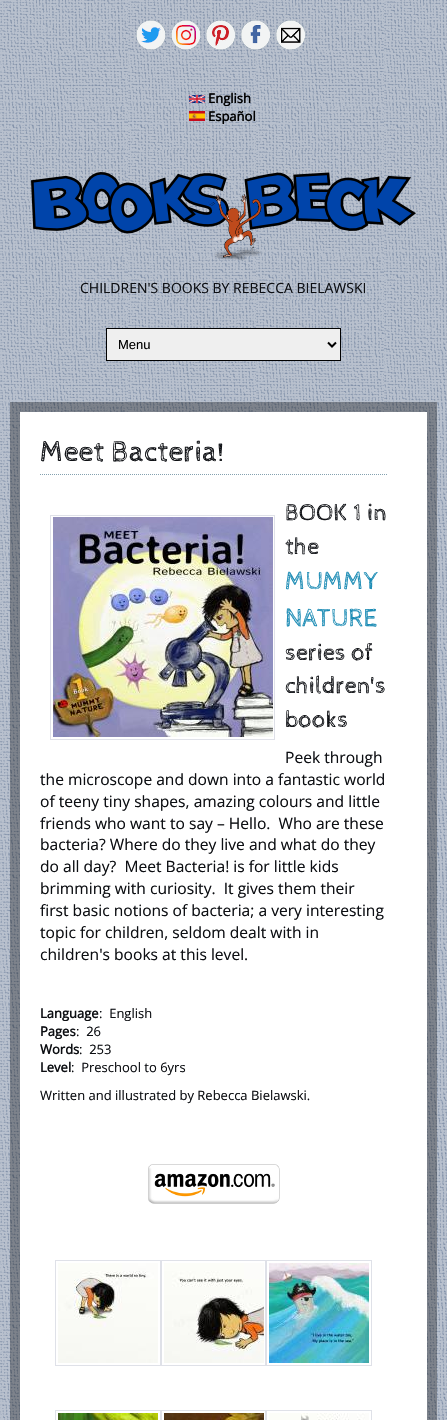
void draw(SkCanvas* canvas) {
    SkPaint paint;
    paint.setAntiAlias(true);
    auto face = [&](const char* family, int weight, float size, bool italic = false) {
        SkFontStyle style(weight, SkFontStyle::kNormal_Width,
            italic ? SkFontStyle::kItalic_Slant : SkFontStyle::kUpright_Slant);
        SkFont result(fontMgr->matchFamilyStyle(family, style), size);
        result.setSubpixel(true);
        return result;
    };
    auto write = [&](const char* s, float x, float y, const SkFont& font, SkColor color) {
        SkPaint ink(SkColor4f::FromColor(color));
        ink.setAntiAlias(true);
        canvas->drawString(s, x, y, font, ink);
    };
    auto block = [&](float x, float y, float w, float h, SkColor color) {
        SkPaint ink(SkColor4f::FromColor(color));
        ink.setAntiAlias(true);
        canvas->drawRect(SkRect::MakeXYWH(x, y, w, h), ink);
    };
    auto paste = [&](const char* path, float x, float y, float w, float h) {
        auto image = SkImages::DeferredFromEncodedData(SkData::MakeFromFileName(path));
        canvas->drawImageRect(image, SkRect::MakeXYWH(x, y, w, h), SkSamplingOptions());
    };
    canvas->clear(SK_ColorWHITE);
    paste("pic1.png", 0, 0, 447, 1420);
    paste("pic2.png", 136, 20, 30, 30);
    paste("pic3.png", 171, 20, 30, 30);
    paste("pic4.png", 206, 20, 30, 30);
    paste("pic5.png", 241, 20, 30, 30);
    paste("pic6.png", 276, 20, 30, 30);
    paste("pic7.png", 189, 95, 16, 8);
    auto kFont1 = face("Open Sans", 700, 13);
    write("English", 208, 103, kFont1, SK_ColorBLACK);
    paste("pic8.png", 189, 111, 16, 10);
    write("Español", 208, 121, kFont1, SK_ColorBLACK);
    paste("pic9.png", 31, 172, 385, 89);
    auto kFont2 = face("Open Sans", 400, 14);
    write("CHILDREN'S BOOKS BY REBECCA BIELAWSKI", 80, 293, kFont2, SkColorSetRGB(13, 15, 19));
    paint.setColor(SkColorSetRGB(239, 239, 239));
    canvas->drawRect(SkRect::MakeXYWH(106.5f, 328.5f, 234, 32), paint);
    paint.setStyle(SkPaint::kStroke_Style);
    paint.setStrokeWidth(1);
    paint.setColor(SK_ColorBLACK);
    canvas->drawRect(SkRect::MakeXYWH(106.5f, 328.5f, 234, 32), paint);
    paint.setStrokeWidth(2);
    canvas->drawPath(SkPathBuilder().moveTo(328, 342.5f).lineTo(332, 346.5f).lineTo(336, 342.5f).detach(), paint);
    auto kFont3 = face("Liberation Sans", 400, 13);
    write("Menu", 118, 349, kFont3, SK_ColorBLACK);
    block(10, 402, 427, 1018, SkColorSetARGB(82, 0, 0, 0));
    block(20, 412, 407, 1008, SK_ColorWHITE);
    paint.setStrokeWidth(1);
    paint.setColor(SkColorSetRGB(132, 161, 175));
    paint.setPathEffect(SkDashPathEffect::Make({{1, 1}}, 0));
    canvas->drawPath(SkPathBuilder().moveTo(40, 474.5f).lineTo(387, 474.5f).detach(), paint);
    paint.setPathEffect(nullptr);
    auto kFont4 = face("Cabin Sketch", 400, 30);
    write("Meet Bacteria!", 40, 461, kFont4, SkColorSetRGB(13, 15, 19));
    auto kFont5 = face("Cabin Sketch", 400, 24);
    write("BOOK 1 in", 285, 520, kFont5, SkColorSetRGB(13, 15, 19));
    paint.setColor(SkColorSetRGB(223, 225, 232));
    canvas->drawRect(SkRect::MakeXYWH(50.5f, 515.5f, 224, 224), paint);
    paste("pic10.png", 53, 517, 220, 220);
    write("the", 285, 554, kFont5, SkColorSetRGB(13, 15, 19));
    auto kFont6 = face("Cabin Sketch", 400, 26);
    write("MUMMY", 285, 589, kFont6, SkColorSetRGB(28, 140, 181));
    write("NATURE", 285, 626, kFont6, SkColorSetRGB(28, 140, 181));
    write("series of", 285, 660, kFont5, SkColorSetRGB(13, 15, 19));
    write("children's", 285, 693, kFont5, SkColorSetRGB(13, 15, 19));
    write("books", 285, 727, kFont5, SkColorSetRGB(13, 15, 19));
    auto kFont7 = face("Open Sans", 400, 15.6f);
    write("Peek through", 285, 763, kFont7, SkColorSetRGB(13, 15, 19));
    write("the microscope and down into a fantastic world", 40, 785, kFont7, SkColorSetRGB(13, 15, 19));
    write("of teeny tiny shapes, amazing colours and little", 40, 807, kFont7, SkColorSetRGB(13, 15, 19));
    write("friends who want to say – Hello.  Who are these", 40, 829, kFont7, SkColorSetRGB(13, 15, 19));
    write("bacteria? Where do they live and what do they", 40, 850, kFont7, SkColorSetRGB(13, 15, 19));
    write("do all day?  Meet Bacteria! is for little kids", 40, 872, kFont7, SkColorSetRGB(13, 15, 19));
    write("brimming with curiosity.  It gives them their", 40, 894, kFont7, SkColorSetRGB(13, 15, 19));
    write("first basic notions of bacteria; a very interesting", 40, 916, kFont7, SkColorSetRGB(13, 15, 19));
    write("topic for children, seldom dealt with in", 40, 938, kFont7, SkColorSetRGB(13, 15, 19));
    write("children's books at this level.", 40, 960, kFont7, SkColorSetRGB(13, 15, 19));
    write("Language", 40, 1018, kFont1, SkColorSetRGB(13, 15, 19));
    auto kFont8 = face("Open Sans", 400, 13);
    write(":  English", 99, 1018, kFont8, SkColorSetRGB(13, 15, 19));
    write("Pages", 40, 1036, kFont1, SkColorSetRGB(13, 15, 19));
    write(":  26", 76, 1036, kFont8, SkColorSetRGB(13, 15, 19));
    write("Words", 40, 1054, kFont1, SkColorSetRGB(13, 15, 19));
    write(":  253", 79, 1054, kFont8, SkColorSetRGB(13, 15, 19));
    write("Level", 40, 1072, kFont1, SkColorSetRGB(13, 15, 19));
    write(":  Preschool to 6yrs", 71, 1072, kFont8, SkColorSetRGB(13, 15, 19));
    write("Written and illustrated by Rebecca Bielawski.", 40, 1100, kFont8, SkColorSetRGB(13, 15, 19));
    paste("pic11.png", 148, 1164, 132, 40);
    canvas->drawRect(SkRect::MakeXYWH(55.5f, 1260.5f, 105, 105), paint);
    canvas->drawRect(SkRect::MakeXYWH(161.5f, 1260.5f, 104, 105), paint);
    canvas->drawRect(SkRect::MakeXYWH(266.5f, 1260.5f, 105, 105), paint);
    paste("pic12.png", 58, 1263, 100, 100);
    paste("pic13.png", 164, 1263, 100, 100);
    paste("pic14.png", 269, 1263, 100, 100);
    canvas->drawRect(SkRect::MakeXYWH(55.5f, 1410.5f, 105, 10), paint);
    canvas->drawRect(SkRect::MakeXYWH(161.5f, 1410.5f, 104, 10), paint);
    canvas->drawRect(SkRect::MakeXYWH(266.5f, 1410.5f, 105, 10), paint);
    paste("pic15.png", 58, 1413, 100, 7);
    paste("pic16.png", 164, 1413, 100, 7);
    paste("pic17.png", 269, 1413, 100, 7);
}
